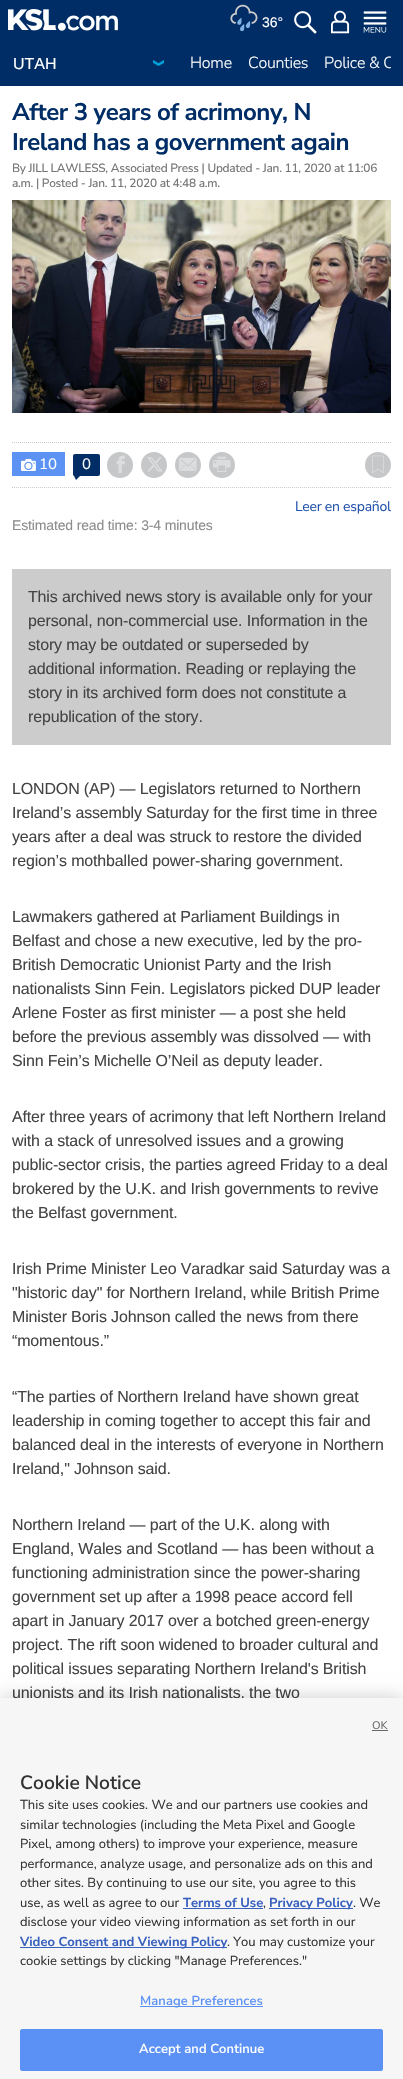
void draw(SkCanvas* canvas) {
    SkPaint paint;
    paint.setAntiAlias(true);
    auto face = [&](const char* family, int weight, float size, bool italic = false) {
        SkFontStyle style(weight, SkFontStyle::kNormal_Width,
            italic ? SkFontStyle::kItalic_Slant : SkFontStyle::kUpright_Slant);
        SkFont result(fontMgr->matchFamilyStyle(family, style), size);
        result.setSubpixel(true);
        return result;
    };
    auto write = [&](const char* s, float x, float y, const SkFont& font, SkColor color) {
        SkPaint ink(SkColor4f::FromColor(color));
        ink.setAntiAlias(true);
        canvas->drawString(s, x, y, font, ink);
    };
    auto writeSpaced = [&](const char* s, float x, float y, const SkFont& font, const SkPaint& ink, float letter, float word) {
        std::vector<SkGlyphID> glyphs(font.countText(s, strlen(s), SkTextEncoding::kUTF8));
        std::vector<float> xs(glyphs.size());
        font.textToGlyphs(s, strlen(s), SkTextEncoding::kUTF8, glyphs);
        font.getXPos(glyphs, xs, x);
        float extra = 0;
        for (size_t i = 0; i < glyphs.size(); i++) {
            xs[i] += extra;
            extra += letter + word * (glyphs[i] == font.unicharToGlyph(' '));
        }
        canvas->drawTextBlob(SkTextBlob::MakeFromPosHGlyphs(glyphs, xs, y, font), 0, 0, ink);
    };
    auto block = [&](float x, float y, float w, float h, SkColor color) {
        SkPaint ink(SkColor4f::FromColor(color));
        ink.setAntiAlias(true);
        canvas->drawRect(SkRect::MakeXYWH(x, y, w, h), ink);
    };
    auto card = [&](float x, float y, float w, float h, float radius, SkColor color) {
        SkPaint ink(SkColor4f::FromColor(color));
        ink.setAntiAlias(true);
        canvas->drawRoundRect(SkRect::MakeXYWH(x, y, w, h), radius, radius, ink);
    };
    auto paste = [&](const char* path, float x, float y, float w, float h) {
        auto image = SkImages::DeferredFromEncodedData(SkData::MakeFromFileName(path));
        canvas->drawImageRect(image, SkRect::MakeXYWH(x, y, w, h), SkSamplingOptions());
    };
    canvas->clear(SK_ColorWHITE);
    block(0, 0, 403, 86, SkColorSetRGB(0, 45, 101));
    paste("pic1.png", 8, 9, 110, 22);
    paste("pic2.png", 230, 4, 28, 28);
    auto kFont1 = face("Liberation Sans", 400, 14);
    write("36°", 262, 27, kFont1, SK_ColorWHITE);
    paste("pic3.png", 294, 11, 23, 23);
    paste("pic4.png", 331, 10, 19, 24);
    paste("pic5.png", 363, 11, 24, 22);
    paste("pic6.png", 153, 60, 11, 6);
    auto kFont2 = face("Liberation Sans", 400, 16);
    write("UTAH", 13, 69, kFont2, SK_ColorWHITE);
    auto kFont3 = face("Nunito Sans", 300, 16);
    paint.setColor(SK_ColorWHITE);
    writeSpaced("Home", 190, 68, kFont3, paint, -0.25f, 0);
    writeSpaced("Counties", 248, 68, kFont3, paint, -0.25f, 0);
    canvas->save();
    canvas->clipRect(SkRect::MakeXYWH(182, 54, 209, 24));
    writeSpaced("Police & C", 324, 68, kFont3, paint, -0.25f, 0);
    canvas->restore();
    auto kFont4 = face("Nunito Sans", 700, 24);
    paint.setColor(SkColorSetRGB(0, 45, 101));
    writeSpaced("After 3 years of acrimony, N", 12, 120, kFont4, paint, -0.5f, 0);
    writeSpaced("Ireland has a government again", 12, 150, kFont4, paint, -0.5f, 0);
    auto kFont5 = face("Nunito Sans", 500, 11.9f);
    paint.setColor(SkColorSetRGB(118, 118, 118));
    writeSpaced("By JILL LAWLESS, Associated Press | Updated - Jan. 11, 2020 at 11:06", 12, 172, kFont5, paint, -0.25f, 0);
    writeSpaced("a.m. | Posted - Jan. 11, 2020 at 4:48 a.m.", 12, 187, kFont5, paint, -0.25f, 0);
    paste("pic7.png", 12, 200, 379, 213);
    paint.setStyle(SkPaint::kStroke_Style);
    paint.setStrokeWidth(1);
    paint.setColor(SkColorSetRGB(204, 204, 204));
    paint.setPathEffect(SkDashPathEffect::Make({{1, 1}}, 0));
    canvas->drawPath(SkPathBuilder().moveTo(12, 442.5f).lineTo(391, 442.5f).detach(), paint);
    paint.setPathEffect(nullptr);
    block(12, 452, 53, 24, SkColorSetRGB(91, 146, 244));
    paste("pic8.png", 21, 458, 15, 13);
    auto kFont6 = face("Nunito Sans", 400, 15);
    write("10", 39, 469, kFont6, SK_ColorWHITE);
    card(73, 454, 27, 22, 2, SkColorSetRGB(0, 45, 101));
    write("0", 82, 469, kFont6, SK_ColorWHITE);
    paint.setStyle(SkPaint::kFill_Style);
    paint.setColor(SkColorSetRGB(0, 45, 101));
    canvas->drawPath(SkPathBuilder().moveTo(73, 474).lineTo(82, 474).lineTo(76, 480).close().detach(), paint);
    paint.setColor(SkColorSetRGB(197, 199, 200));
    canvas->drawCircle(120, 465, 13, paint);
    paste("pic9.png", 116, 455, 9, 18);
    canvas->drawCircle(154, 465, 13, paint);
    paste("pic10.png", 147, 457, 16, 15);
    canvas->drawCircle(188, 465, 13, paint);
    paste("pic11.png", 179, 457, 18, 14);
    canvas->drawCircle(222, 465, 13, paint);
    paste("pic12.png", 213, 456, 18, 16);
    canvas->drawCircle(378, 465, 13, paint);
    paste("pic13.png", 372, 455, 12, 18);
    paint.setStyle(SkPaint::kStroke_Style);
    paint.setColor(SkColorSetRGB(204, 204, 204));
    paint.setPathEffect(SkDashPathEffect::Make({{1, 1}}, 0));
    canvas->drawPath(SkPathBuilder().moveTo(12, 487.5f).lineTo(391, 487.5f).detach(), paint);
    paint.setPathEffect(nullptr);
    auto kFont7 = face("Nunito Sans", 400, 14);
    paint.setStyle(SkPaint::kFill_Style);
    paint.setColor(SkColorSetRGB(35, 84, 172));
    writeSpaced("Leer en español", 295, 511, kFont7, paint, -0.25f, 0);
    paint.setColor(SkColorSetRGB(140, 140, 140));
    writeSpaced("Estimated read time: 3-4 minutes", 12, 530, kFont1, paint, -0.15f, 0);
    block(12, 569, 379, 176, SkColorSetRGB(204, 204, 204));
    paint.setColor(SkColorSetRGB(68, 68, 68));
    writeSpaced("This archived news story is available only for your", 28, 602, kFont2, paint, -0.15f, 0);
    writeSpaced("personal, non-commercial use. Information in the", 28, 626, kFont2, paint, -0.15f, 0);
    writeSpaced("story may be outdated or superseded by", 28, 650, kFont2, paint, -0.15f, 0);
    writeSpaced("additional information. Reading or replaying the", 28, 674, kFont2, paint, -0.15f, 0);
    writeSpaced("story in its archived form does not constitute a", 28, 698, kFont2, paint, -0.15f, 0);
    writeSpaced("republication of the story.", 28, 722, kFont2, paint, -0.15f, 0);
    writeSpaced("LONDON (AP) — Legislators returned to Northern", 12, 794, kFont2, paint, -0.15f, 0);
    writeSpaced("Ireland’s assembly Saturday for the first time in three", 12, 818, kFont2, paint, -0.15f, 0);
    writeSpaced("years after a deal was struck to restore the divided", 12, 842, kFont2, paint, -0.15f, 0);
    writeSpaced("region’s mothballed power-sharing government.", 12, 866, kFont2, paint, -0.15f, 0);
    writeSpaced("Lawmakers gathered at Parliament Buildings in", 12, 922, kFont2, paint, -0.15f, 0);
    writeSpaced("Belfast and chose a new executive, led by the pro-", 12, 946, kFont2, paint, -0.15f, 0);
    writeSpaced("British Democratic Unionist Party and the Irish", 12, 970, kFont2, paint, -0.15f, 0);
    writeSpaced("nationalists Sinn Fein. Legislators picked DUP leader", 12, 994, kFont2, paint, -0.15f, 0);
    writeSpaced("Arlene Foster as first minister — a post she held", 12, 1018, kFont2, paint, -0.15f, 0);
    writeSpaced("before the previous assembly was dissolved — with", 12, 1042, kFont2, paint, -0.15f, 0);
    writeSpaced("Sinn Fein’s Michelle O’Neil as deputy leader.", 12, 1066, kFont2, paint, -0.15f, 0);
    writeSpaced("After three years of acrimony that left Northern Ireland", 12, 1122, kFont2, paint, -0.15f, 0);
    writeSpaced("with a stack of unresolved issues and a growing", 12, 1146, kFont2, paint, -0.15f, 0);
    writeSpaced("public-sector crisis, the parties agreed Friday to a deal", 12, 1170, kFont2, paint, -0.15f, 0);
    writeSpaced("brokered by the U.K. and Irish governments to revive", 12, 1194, kFont2, paint, -0.15f, 0);
    writeSpaced("the Belfast government.", 12, 1218, kFont2, paint, -0.15f, 0);
    writeSpaced("Irish Prime Minister Leo Varadkar said Saturday was a", 12, 1274, kFont2, paint, -0.15f, 0);
    writeSpaced("\"historic day\" for Northern Ireland, while British Prime", 12, 1298, kFont2, paint, -0.15f, 0);
    writeSpaced("Minister Boris Johnson called the news from there", 12, 1322, kFont2, paint, -0.15f, 0);
    writeSpaced("“momentous.”", 12, 1346, kFont2, paint, -0.15f, 0);
    writeSpaced("“The parties of Northern Ireland have shown great", 12, 1402, kFont2, paint, -0.15f, 0);
    writeSpaced("leadership in coming together to accept this fair and", 12, 1426, kFont2, paint, -0.15f, 0);
    writeSpaced("balanced deal in the interests of everyone in Northern", 12, 1450, kFont2, paint, -0.15f, 0);
    writeSpaced("Ireland,\" Johnson said.", 12, 1474, kFont2, paint, -0.15f, 0);
    writeSpaced("Northern Ireland — part of the U.K. along with", 12, 1530, kFont2, paint, -0.15f, 0);
    writeSpaced("England, Wales and Scotland — has been without a", 12, 1554, kFont2, paint, -0.15f, 0);
    writeSpaced("functioning administration since the power-sharing", 12, 1578, kFont2, paint, -0.15f, 0);
    writeSpaced("government set up after a 1998 peace accord fell", 12, 1602, kFont2, paint, -0.15f, 0);
    writeSpaced("apart in January 2017 over a botched green-energy", 12, 1626, kFont2, paint, -0.15f, 0);
    writeSpaced("project. The rift soon widened to broader cultural and", 12, 1650, kFont2, paint, -0.15f, 0);
    writeSpaced("political issues separating Northern Ireland's British", 12, 1674, kFont2, paint, -0.15f, 0);
    writeSpaced("unionists and its Irish nationalists, the two", 12, 1698, kFont2, paint, -0.15f, 0);
    paint.setColor(SkColorSetARGB(51, 0, 0, 0));
    paint.setMaskFilter(SkMaskFilter::MakeBlur(kNormal_SkBlurStyle, 9));
    canvas->drawRect(SkRect::MakeXYWH(0, 1698, 403, 381), paint);
    paint.setMaskFilter(nullptr);
    block(0, 1698, 403, 381, SkColorSetRGB(246, 246, 246));
    auto kFont8 = face("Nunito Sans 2", 400, 11);
    write("OK", 372, 1729, kFont8, SkColorSetRGB(105, 105, 105));
    block(372, 1730, 16, 1, SkColorSetRGB(105, 105, 105));
    auto kFont9 = face("Nunito Sans", 600, 19.25f);
    write("Cookie Notice", 20, 1789, kFont9, SkColorSetRGB(52, 52, 52));
    auto kFont10 = face("Nunito Sans", 400, 13);
    write("This site uses cookies. We and our partners use cookies and", 20, 1809, kFont10, SkColorSetRGB(52, 52, 52));
    write("similar technologies (including the Meta Pixel and Google", 20, 1829, kFont10, SkColorSetRGB(52, 52, 52));
    write("Pixel, among others) to improve your experience, measure", 20, 1848, kFont10, SkColorSetRGB(52, 52, 52));
    write("performance, analyze usage, and personalize ads on this and", 20, 1868, kFont10, SkColorSetRGB(52, 52, 52));
    write("other sites. By continuing to use our site, you agree to this", 20, 1887, kFont10, SkColorSetRGB(52, 52, 52));
    write("use, as well as agree to our", 20, 1907, kFont10, SkColorSetRGB(52, 52, 52));
    auto kFont11 = face("Nunito Sans", 700, 13);
    write("Terms of Use", 183, 1907, kFont11, SkColorSetRGB(56, 96, 190));
    block(183, 1908, 80, 1, SkColorSetRGB(56, 96, 190));
    write(",", 263, 1907, kFont10, SkColorSetRGB(52, 52, 52));
    block(269, 1908, 84, 1, SkColorSetRGB(56, 96, 190));
    write("Privacy Policy", 269, 1907, kFont11, SkColorSetRGB(56, 96, 190));
    write(". We", 353, 1907, kFont10, SkColorSetRGB(52, 52, 52));
    write("disclose your video viewing information as set forth in our", 20, 1926, kFont10, SkColorSetRGB(52, 52, 52));
    block(20, 1947, 207, 1, SkColorSetRGB(56, 96, 190));
    write("Video Consent and Viewing Policy", 20, 1946, kFont11, SkColorSetRGB(56, 96, 190));
    write(". You may customize your", 227, 1946, kFont10, SkColorSetRGB(52, 52, 52));
    write("cookie settings by clicking \"Manage Preferences.\"", 20, 1965, kFont10, SkColorSetRGB(52, 52, 52));
    block(140, 2006, 123, 1, SkColorSetRGB(91, 145, 244));
    auto kFont12 = face("Nunito Sans", 600, 13);
    paint.setColor(SkColorSetRGB(91, 145, 244));
    writeSpaced("Manage Preferences", 140, 2005, kFont12, paint, 0.1f, 0);
    canvas->drawRoundRect(SkRect::MakeXYWH(20.5f, 2029.5f, 362, 41), 1.5f, 1.5f, paint);
    paint.setStyle(SkPaint::kStroke_Style);
    canvas->drawRoundRect(SkRect::MakeXYWH(20.5f, 2029.5f, 362, 41), 1.5f, 1.5f, paint);
    paint.setStyle(SkPaint::kFill_Style);
    paint.setColor(SK_ColorWHITE);
    writeSpaced("Accept and Continue", 139, 2053, kFont12, paint, 0.1f, 0);
}
